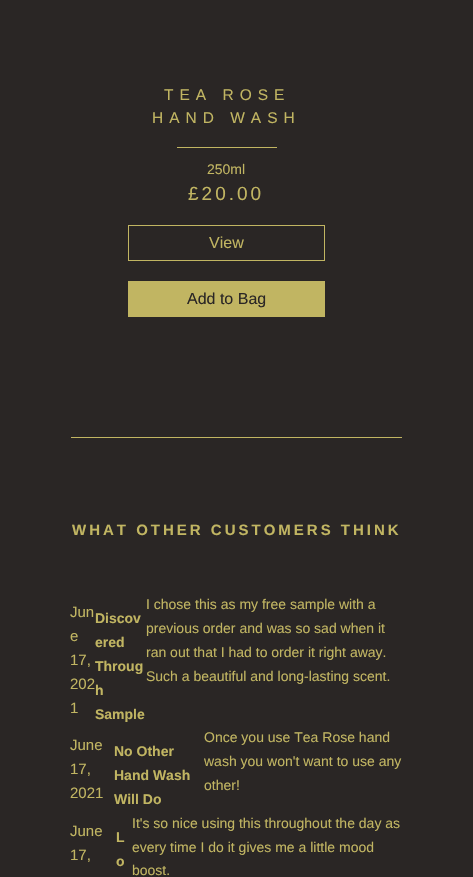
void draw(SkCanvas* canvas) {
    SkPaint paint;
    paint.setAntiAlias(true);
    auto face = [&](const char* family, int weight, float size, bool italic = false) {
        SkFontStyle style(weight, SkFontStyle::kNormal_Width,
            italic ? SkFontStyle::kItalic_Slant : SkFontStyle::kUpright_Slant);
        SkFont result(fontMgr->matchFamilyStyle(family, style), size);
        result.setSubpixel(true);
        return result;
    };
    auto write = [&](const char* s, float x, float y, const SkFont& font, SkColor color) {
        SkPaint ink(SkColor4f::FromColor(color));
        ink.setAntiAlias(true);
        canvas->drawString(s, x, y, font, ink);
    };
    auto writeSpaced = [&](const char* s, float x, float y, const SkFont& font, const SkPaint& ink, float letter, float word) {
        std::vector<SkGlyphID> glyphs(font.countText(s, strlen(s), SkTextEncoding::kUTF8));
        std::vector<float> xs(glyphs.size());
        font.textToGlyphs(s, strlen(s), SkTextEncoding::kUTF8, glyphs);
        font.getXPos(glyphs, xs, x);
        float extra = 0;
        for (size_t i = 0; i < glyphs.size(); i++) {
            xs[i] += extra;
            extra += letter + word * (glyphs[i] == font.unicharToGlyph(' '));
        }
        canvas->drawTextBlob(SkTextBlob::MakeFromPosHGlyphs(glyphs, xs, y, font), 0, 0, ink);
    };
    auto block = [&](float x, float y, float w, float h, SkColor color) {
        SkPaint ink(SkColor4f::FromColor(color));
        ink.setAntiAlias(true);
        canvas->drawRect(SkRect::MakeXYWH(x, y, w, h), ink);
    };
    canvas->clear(SkColorSetRGB(42, 38, 37));
    auto kFont1 = face("Liberation Sans", 400, 15.5f);
    paint.setColor(SkColorSetRGB(193, 181, 98));
    writeSpaced("TEA ROSE", 164, 100, kFont1, paint, 6, 0);
    writeSpaced("HAND WASH", 152, 123, kFont1, paint, 6, 0);
    block(177, 147, 100, 1, SkColorSetRGB(193, 181, 98));
    auto kFont2 = face("Liberation Sans", 400, 14);
    write("250ml", 207, 174, kFont2, SkColorSetRGB(193, 181, 98));
    auto kFont3 = face("Liberation Sans", 400, 19);
    writeSpaced("£20.00", 188, 200, kFont3, paint, 3, 0);
    paint.setStyle(SkPaint::kStroke_Style);
    paint.setStrokeWidth(1);
    canvas->drawRect(SkRect::MakeXYWH(128.5f, 225.5f, 196, 35), paint);
    auto kFont4 = face("Liberation Sans", 400, 16);
    write("View", 209, 248, kFont4, SkColorSetRGB(193, 181, 98));
    block(128, 281, 197, 36, SkColorSetRGB(193, 181, 98));
    write("Add to Bag", 187, 304, kFont4, SkColorSetRGB(42, 38, 37));
    block(71, 437, 331, 1, SkColorSetRGB(193, 181, 98));
    auto kFont5 = face("Liberation Sans", 700, 15);
    paint.setStyle(SkPaint::kFill_Style);
    writeSpaced("WHAT OTHER CUSTOMERS THINK", 72, 535, kFont5, paint, 3, 0);
    auto kFont6 = face("Liberation Sans", 400, 15);
    write("Jun", 70, 617, kFont6, SkColorSetRGB(193, 181, 98));
    write("e", 70, 641, kFont6, SkColorSetRGB(193, 181, 98));
    write("17,", 70, 665, kFont6, SkColorSetRGB(193, 181, 98));
    write("202", 70, 689, kFont6, SkColorSetRGB(193, 181, 98));
    write("1", 70, 713, kFont6, SkColorSetRGB(193, 181, 98));
    auto kFont7 = face("Liberation Sans", 700, 14);
    write("Discov", 95, 623, kFont7, SkColorSetRGB(193, 181, 98));
    write("ered", 95, 647, kFont7, SkColorSetRGB(193, 181, 98));
    write("Throug", 95, 671, kFont7, SkColorSetRGB(193, 181, 98));
    write("h", 95, 695, kFont7, SkColorSetRGB(193, 181, 98));
    write("Sample", 95, 719, kFont7, SkColorSetRGB(193, 181, 98));
    write("I chose this as my free sample with a", 146, 609, kFont2, SkColorSetRGB(193, 181, 98));
    write("previous order and was so sad when it", 146, 633, kFont2, SkColorSetRGB(193, 181, 98));
    write("ran out that I had to order it right away.", 146, 657, kFont2, SkColorSetRGB(193, 181, 98));
    write("Such a beautiful and long-lasting scent.", 146, 681, kFont2, SkColorSetRGB(193, 181, 98));
    write("June", 70, 750, kFont6, SkColorSetRGB(193, 181, 98));
    write("17,", 70, 774, kFont6, SkColorSetRGB(193, 181, 98));
    write("2021", 70, 798, kFont6, SkColorSetRGB(193, 181, 98));
    write("No Other", 114, 756, kFont7, SkColorSetRGB(193, 181, 98));
    write("Hand Wash", 114, 780, kFont7, SkColorSetRGB(193, 181, 98));
    write("Will Do", 114, 804, kFont7, SkColorSetRGB(193, 181, 98));
    write("Once you use Tea Rose hand", 204, 742, kFont2, SkColorSetRGB(193, 181, 98));
    write("wash you won't want to use any", 204, 766, kFont2, SkColorSetRGB(193, 181, 98));
    write("other!", 204, 790, kFont2, SkColorSetRGB(193, 181, 98));
    write("June", 70, 836, kFont6, SkColorSetRGB(193, 181, 98));
    write("17,", 70, 860, kFont6, SkColorSetRGB(193, 181, 98));
    write("L", 116, 842, kFont7, SkColorSetRGB(193, 181, 98));
    write("o", 116, 866, kFont7, SkColorSetRGB(193, 181, 98));
    write("It's so nice using this throughout the day as", 132, 828, kFont2, SkColorSetRGB(193, 181, 98));
    write("every time I do it gives me a little mood", 132, 852, kFont2, SkColorSetRGB(193, 181, 98));
    write("boost.", 132, 875, kFont2, SkColorSetRGB(193, 181, 98));
}
